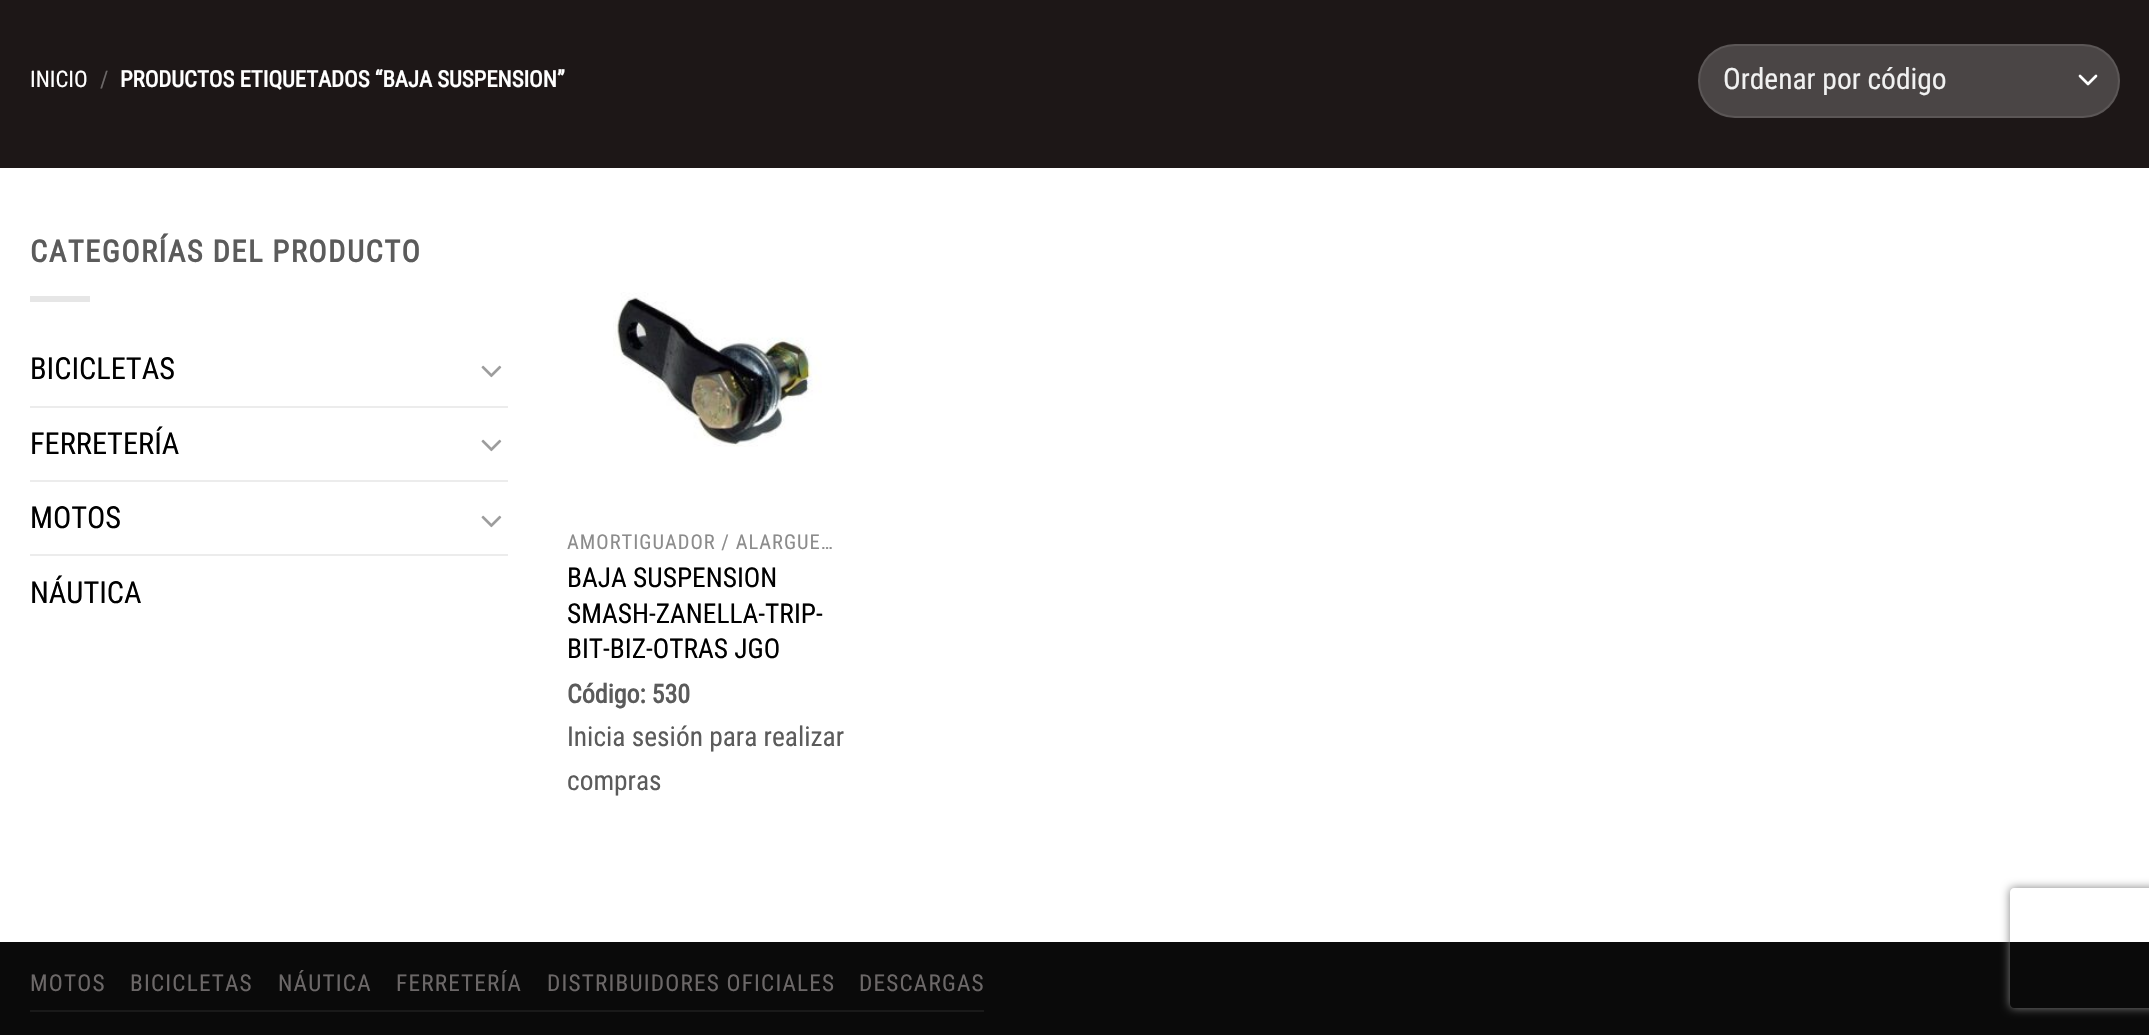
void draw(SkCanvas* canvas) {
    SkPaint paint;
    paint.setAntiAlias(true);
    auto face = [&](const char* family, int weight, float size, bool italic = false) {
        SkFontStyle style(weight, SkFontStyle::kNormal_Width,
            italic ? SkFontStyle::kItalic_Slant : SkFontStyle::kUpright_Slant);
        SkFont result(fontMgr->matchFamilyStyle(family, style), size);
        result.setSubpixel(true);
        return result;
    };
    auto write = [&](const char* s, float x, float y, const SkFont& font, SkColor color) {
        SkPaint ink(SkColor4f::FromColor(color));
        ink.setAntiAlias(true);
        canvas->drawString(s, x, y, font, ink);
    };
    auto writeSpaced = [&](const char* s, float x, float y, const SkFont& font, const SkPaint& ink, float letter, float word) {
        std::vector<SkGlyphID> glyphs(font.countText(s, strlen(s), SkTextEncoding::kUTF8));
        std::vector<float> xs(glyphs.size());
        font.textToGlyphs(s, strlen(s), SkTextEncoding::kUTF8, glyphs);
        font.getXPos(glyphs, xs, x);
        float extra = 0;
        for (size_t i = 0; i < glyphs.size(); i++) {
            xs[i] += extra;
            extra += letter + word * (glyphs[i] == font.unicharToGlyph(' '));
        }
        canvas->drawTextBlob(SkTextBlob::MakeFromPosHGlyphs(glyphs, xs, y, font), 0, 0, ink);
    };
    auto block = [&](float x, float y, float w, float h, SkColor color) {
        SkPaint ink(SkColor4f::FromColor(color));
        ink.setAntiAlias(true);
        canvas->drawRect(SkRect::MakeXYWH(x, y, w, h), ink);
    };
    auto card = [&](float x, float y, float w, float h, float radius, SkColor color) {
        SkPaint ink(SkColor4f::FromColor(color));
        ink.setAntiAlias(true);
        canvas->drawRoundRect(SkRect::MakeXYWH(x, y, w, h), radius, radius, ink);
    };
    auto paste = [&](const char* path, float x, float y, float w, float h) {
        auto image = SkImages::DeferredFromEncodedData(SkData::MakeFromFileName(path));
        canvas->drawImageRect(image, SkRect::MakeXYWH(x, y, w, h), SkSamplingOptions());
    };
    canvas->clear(SK_ColorWHITE);
    block(0, 0, 2149, 168, SkColorSetRGB(29, 23, 23));
    auto kFont1 = face("Roboto Condensed", 400, 22.75f);
    write("INICIO", 30, 87, kFont1, SK_ColorWHITE);
    write("/", 100, 87, kFont1, SkColorSetRGB(108, 104, 104));
    auto kFont2 = face("Roboto Condensed", 700, 22.75f);
    write("PRODUCTOS ETIQUETADOS “BAJA SUSPENSION”", 120, 87, kFont2, SK_ColorWHITE);
    card(1698, 44, 422, 74, 37, SkColorSetRGB(74, 69, 69));
    paint.setStyle(SkPaint::kStroke_Style);
    paint.setStrokeWidth(2.7f);
    paint.setStrokeCap(SkPaint::kRound_Cap);
    paint.setStrokeJoin(SkPaint::kRound_Join);
    paint.setColor(SK_ColorWHITE);
    canvas->drawPath(SkPathBuilder().moveTo(2080, 76).lineTo(2088, 84).lineTo(2096, 76).detach(), paint);
    paint.setStrokeWidth(2);
    paint.setStrokeCap(SkPaint::kButt_Cap);
    paint.setStrokeJoin(SkPaint::kMiter_Join);
    paint.setColor(SkColorSetARGB(23, 255, 255, 255));
    canvas->drawRoundRect(SkRect::MakeXYWH(1699, 45, 420, 72), 36, 36, paint);
    auto kFont3 = face("Roboto Condensed", 400, 29.5f);
    write("Ordenar por código", 1723, 89, kFont3, SkColorSetRGB(241, 241, 241));
    auto kFont4 = face("Roboto Condensed", 700, 30.4f);
    paint.setStyle(SkPaint::kFill_Style);
    paint.setColor(SkColorSetRGB(91, 91, 91));
    writeSpaced("CATEGORÍAS DEL PRODUCTO", 30, 262, kFont4, paint, 1.5f, 0);
    block(30, 296, 60, 6, SkColorSetRGB(230, 230, 230));
    auto kFont5 = face("Roboto Condensed", 400, 30.4f);
    write("BICICLETAS", 30, 379, kFont5, SK_ColorBLACK);
    paste("pic1.png", 481, 365, 21, 13);
    block(30, 406, 478, 2, SkColorSetRGB(236, 236, 236));
    write("FERRETERÍA", 30, 454, kFont5, SK_ColorBLACK);
    paste("pic1.png", 481, 439, 21, 13);
    block(30, 480, 478, 2, SkColorSetRGB(236, 236, 236));
    write("MOTOS", 30, 528, kFont5, SK_ColorBLACK);
    paste("pic1.png", 481, 515, 21, 13);
    block(30, 554, 478, 2, SkColorSetRGB(236, 236, 236));
    write("NÁUTICA", 30, 603, kFont5, SK_ColorBLACK);
    paste("pic2.png", 613, 292, 209, 155);
    auto kFont6 = face("Roboto Condensed", 400, 20.5f);
    paint.setColor(SkColorSetRGB(140, 140, 140));
    writeSpaced("AMORTIGUADOR / ALARGUE…", 567, 549, kFont6, paint, 1, 0);
    auto kFont7 = face("Roboto Condensed", 400, 27.4f);
    write("BAJA SUSPENSION", 567, 587, kFont7, SK_ColorBLACK);
    write("SMASH-ZANELLA-TRIP-", 567, 623, kFont7, SK_ColorBLACK);
    write("BIT-BIZ-OTRAS JGO", 567, 658, kFont7, SK_ColorBLACK);
    auto kFont8 = face("Roboto Condensed", 700, 26);
    write("Código: 530", 567, 703, kFont8, SkColorSetRGB(91, 91, 91));
    write("Inicia sesión para realizar", 567, 746, kFont7, SkColorSetRGB(91, 91, 91));
    write("compras", 567, 790, kFont7, SkColorSetRGB(91, 91, 91));
    block(0, 942, 2149, 93, SkColorSetRGB(10, 10, 10));
    block(30, 1010, 954, 2, SkColorSetRGB(26, 26, 26));
    auto kFont9 = face("Roboto Condensed", 400, 23.25f);
    paint.setColor(SkColorSetRGB(108, 104, 104));
    writeSpaced("MOTOS", 30, 991, kFont9, paint, 1.2f, 0);
    writeSpaced("BICICLETAS", 130, 991, kFont9, paint, 1.2f, 0);
    writeSpaced("NÁUTICA", 278, 991, kFont9, paint, 1.2f, 0);
    writeSpaced("FERRETERÍA", 396, 991, kFont9, paint, 1.2f, 0);
    writeSpaced("DISTRIBUIDORES OFICIALES", 547, 991, kFont9, paint, 1.2f, 0);
    writeSpaced("DESCARGAS", 859, 991, kFont9, paint, 1.2f, 0);
    canvas->save();
    canvas->clipPath(SkPathBuilder(SkPathFillType::kEvenOdd).moveTo(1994, 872).lineTo(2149, 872).lineTo(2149, 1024).lineTo(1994, 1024).close().moveTo(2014, 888).lineTo(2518, 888).cubicTo(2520, 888, 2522, 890, 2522, 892).lineTo(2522, 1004).cubicTo(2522, 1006, 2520, 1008, 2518, 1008).lineTo(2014, 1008).cubicTo(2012, 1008, 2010, 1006, 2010, 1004).lineTo(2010, 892).cubicTo(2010, 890, 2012, 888, 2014, 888).close().detach(), true);
    paint.setColor(SkColorSetRGB(128, 128, 128));
    paint.setMaskFilter(SkMaskFilter::MakeBlur(kNormal_SkBlurStyle, 5));
    canvas->drawRoundRect(SkRect::MakeXYWH(2010, 888, 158, 120), 4, 4, paint);
    paint.setMaskFilter(nullptr);
    canvas->restore();
}
